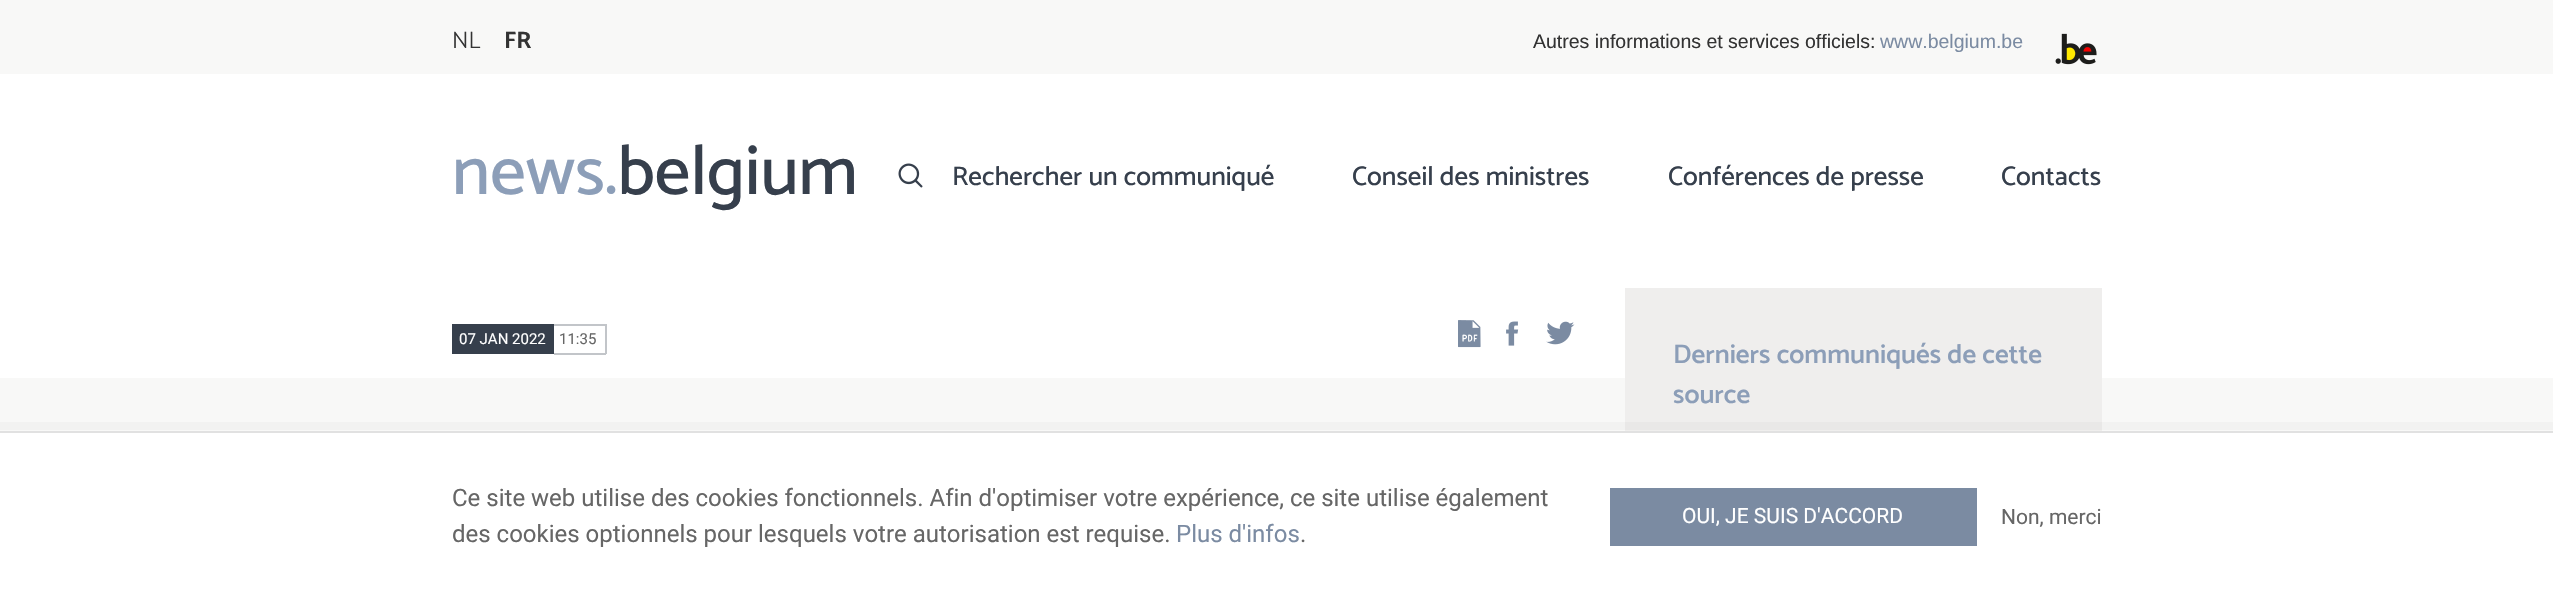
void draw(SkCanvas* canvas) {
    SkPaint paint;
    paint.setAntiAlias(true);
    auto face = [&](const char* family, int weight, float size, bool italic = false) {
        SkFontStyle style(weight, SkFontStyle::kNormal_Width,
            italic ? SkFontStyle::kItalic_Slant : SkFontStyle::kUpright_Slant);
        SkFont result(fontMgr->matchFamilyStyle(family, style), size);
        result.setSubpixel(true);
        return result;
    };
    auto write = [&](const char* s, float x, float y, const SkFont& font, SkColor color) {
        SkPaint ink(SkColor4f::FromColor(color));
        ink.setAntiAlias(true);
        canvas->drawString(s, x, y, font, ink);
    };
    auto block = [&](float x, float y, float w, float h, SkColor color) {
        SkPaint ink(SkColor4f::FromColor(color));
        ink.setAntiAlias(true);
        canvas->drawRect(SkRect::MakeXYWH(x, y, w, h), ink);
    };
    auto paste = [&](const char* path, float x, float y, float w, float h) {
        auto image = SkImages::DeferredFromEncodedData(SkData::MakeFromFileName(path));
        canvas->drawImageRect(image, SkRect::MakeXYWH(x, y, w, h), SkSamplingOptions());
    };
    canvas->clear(SkColorSetRGB(248, 248, 247));
    auto kFont1 = face("Catamaran", 300, 24);
    write("NL", 452, 48, kFont1, SkColorSetRGB(51, 51, 51));
    auto kFont2 = face("Catamaran", 700, 24);
    write("FR", 504, 48, kFont2, SkColorSetRGB(51, 51, 51));
    auto kFont3 = face("Liberation Sans", 400, 19.5f);
    write("Autres informations et services officiels:", 1533, 48, kFont3, SkColorSetRGB(51, 51, 51));
    write("www.belgium.be", 1880, 48, kFont3, SkColorSetRGB(123, 139, 162));
    paste("pic1.png", 2055, 33, 42, 32);
    block(0, 74, 2553, 304, SK_ColorWHITE);
    auto kFont4 = face("Catamaran", 500, 70.5f);
    write("news.", 452, 194, kFont4, SkColorSetRGB(140, 158, 184));
    write("belgium", 617, 194, kFont4, SkColorSetRGB(54, 63, 76));
    paste("pic2.png", 898, 163, 25, 25);
    auto kFont5 = face("Catamaran", 500, 27);
    write("Rechercher un communiqué", 952, 185, kFont5, SkColorSetRGB(54, 63, 76));
    write("Conseil des ministres", 1352, 185, kFont5, SkColorSetRGB(54, 63, 76));
    write("Conférences de presse", 1668, 185, kFont5, SkColorSetRGB(54, 63, 76));
    write("Contacts", 2001, 185, kFont5, SkColorSetRGB(54, 63, 76));
    block(452, 324, 102, 30, SkColorSetRGB(54, 63, 76));
    auto kFont6 = face("Roboto", 400, 15);
    write("07 JAN 2022", 459, 344, kFont6, SK_ColorWHITE);
    block(554, 324, 52, 2, SkColorSetRGB(194, 197, 201));
    block(605, 324, 2, 30, SkColorSetRGB(194, 197, 201));
    block(554, 353, 52, 2, SkColorSetRGB(194, 197, 201));
    write("11:35", 559, 344, kFont6, SkColorSetRGB(102, 102, 102));
    paste("pic3.png", 1458, 320, 23, 28);
    paste("pic4.png", 1506, 321, 13, 25);
    paste("pic5.png", 1546, 321, 29, 24);
    block(1625, 288, 477, 143, SkColorSetRGB(239, 238, 237));
    auto kFont7 = face("Catamaran", 600, 27);
    write("Derniers communiqués de cette", 1673, 363, kFont7, SkColorSetRGB(140, 158, 184));
    write("source", 1673, 403, kFont7, SkColorSetRGB(140, 158, 184));
    paint.setColor(SkColorSetARGB(8, 51, 51, 51));
    canvas->drawPath(SkPathBuilder().moveTo(-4, 422).lineTo(-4, 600).lineTo(0, 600).lineTo(0, 430).lineTo(2553, 430).lineTo(2553, 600).lineTo(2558, 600).lineTo(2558, 422).close().detach(), paint);
    block(0, 433, 2553, 166, SK_ColorWHITE);
    block(0, 431, 2553, 2, SkColorSetRGB(225, 225, 225));
    auto kFont8 = face("Roboto", 400, 24);
    write("Ce site web utilise des cookies fonctionnels. Afin d'optimiser votre expérience, ce site utilise également", 452, 506, kFont8, SkColorSetRGB(102, 102, 102));
    write("des cookies optionnels pour lesquels votre autorisation est requise.", 452, 542, kFont8, SkColorSetRGB(102, 102, 102));
    write("Plus d'infos", 1176, 542, kFont8, SkColorSetRGB(123, 139, 162));
    write(".", 1300, 542, kFont8, SkColorSetRGB(102, 102, 102));
    block(1610, 488, 367, 58, SkColorSetRGB(123, 139, 162));
    auto kFont9 = face("Roboto", 400, 21);
    write("OUI, JE SUIS D'ACCORD", 1682, 523, kFont9, SK_ColorWHITE);
    write("Non, merci", 2001, 524, kFont9, SkColorSetRGB(102, 102, 102));
}
